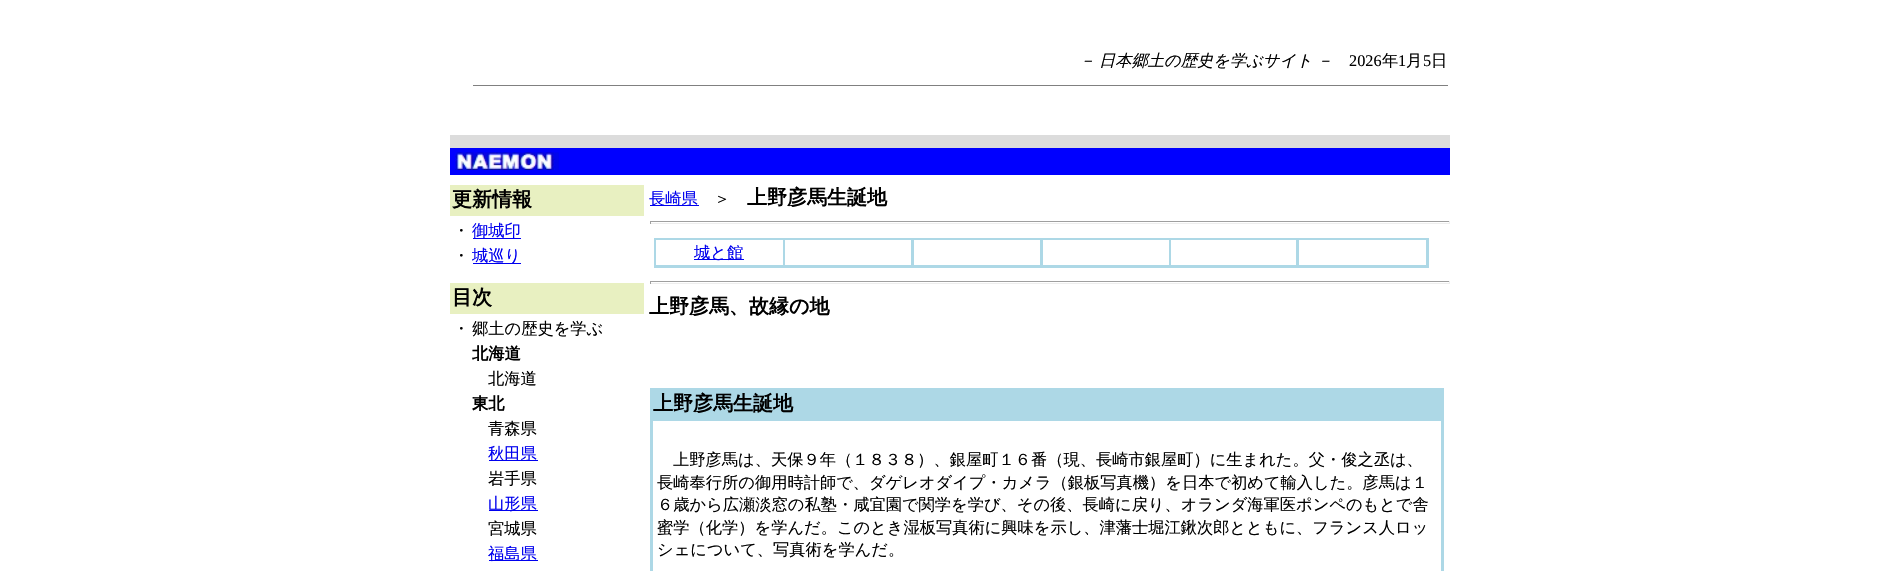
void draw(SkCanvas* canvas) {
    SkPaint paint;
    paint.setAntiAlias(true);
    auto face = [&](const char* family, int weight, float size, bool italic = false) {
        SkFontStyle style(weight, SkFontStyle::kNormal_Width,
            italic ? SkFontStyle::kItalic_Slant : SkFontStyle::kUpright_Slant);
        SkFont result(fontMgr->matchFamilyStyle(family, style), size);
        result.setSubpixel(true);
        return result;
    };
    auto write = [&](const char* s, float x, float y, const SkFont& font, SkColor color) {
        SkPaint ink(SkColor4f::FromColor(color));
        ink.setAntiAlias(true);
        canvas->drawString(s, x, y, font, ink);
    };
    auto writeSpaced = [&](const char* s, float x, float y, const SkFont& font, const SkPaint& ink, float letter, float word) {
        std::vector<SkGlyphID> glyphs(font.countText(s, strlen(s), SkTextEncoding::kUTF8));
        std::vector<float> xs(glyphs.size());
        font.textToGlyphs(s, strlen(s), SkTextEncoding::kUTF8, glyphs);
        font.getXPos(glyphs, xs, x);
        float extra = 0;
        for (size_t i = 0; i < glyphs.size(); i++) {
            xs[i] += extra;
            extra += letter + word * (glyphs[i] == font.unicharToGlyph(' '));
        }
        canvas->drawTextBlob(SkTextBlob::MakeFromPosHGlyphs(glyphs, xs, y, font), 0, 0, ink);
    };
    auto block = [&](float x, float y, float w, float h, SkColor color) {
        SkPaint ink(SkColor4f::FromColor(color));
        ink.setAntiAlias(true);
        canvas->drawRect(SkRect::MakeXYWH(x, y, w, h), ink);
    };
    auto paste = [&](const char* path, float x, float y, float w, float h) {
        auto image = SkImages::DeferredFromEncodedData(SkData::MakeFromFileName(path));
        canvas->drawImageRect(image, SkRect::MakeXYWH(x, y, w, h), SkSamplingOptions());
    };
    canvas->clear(SK_ColorWHITE);
    auto kFont1 = face("WenQuanYi Zen Hei", 500, 16.25f, true);
    paint.setColor(SK_ColorBLACK);
    writeSpaced("－ 日本郷土の歴史を学ぶサイト －", 1079, 66, kFont1, paint, 0, -1);
    auto kFont2 = face("Liberation Serif", 400, 16.25f);
    write("2026", 1349, 66, kFont2, SK_ColorBLACK);
    auto kFont3 = face("WenQuanYi Zen Hei", 500, 16.25f);
    write("年", 1382, 66, kFont3, SK_ColorBLACK);
    write("1", 1398, 66, kFont2, SK_ColorBLACK);
    write("月", 1406, 66, kFont3, SK_ColorBLACK);
    write("5", 1423, 66, kFont2, SK_ColorBLACK);
    write("日", 1431, 66, kFont3, SK_ColorBLACK);
    block(473, 85, 975, 1, SkColorSetRGB(128, 128, 128));
    block(450, 135, 1000, 13, SkColorSetRGB(220, 220, 220));
    block(450, 148, 1000, 27, SkColorSetRGB(0, 0, 255));
    paste("pic1.png", 455, 152, 104, 18);
    block(450, 185, 194, 31, SkColorSetRGB(232, 240, 193));
    auto kFont4 = face("WenQuanYi Zen Hei", 700, 20);
    write("更新情報", 452, 206, kFont4, SK_ColorBLACK);
    write("・", 453, 236, kFont3, SK_ColorBLACK);
    block(473, 238, 48, 1, SkColorSetRGB(0, 0, 238));
    write("御城印", 472, 236, kFont3, SkColorSetRGB(0, 0, 238));
    write("・", 453, 261, kFont3, SK_ColorBLACK);
    block(473, 263, 48, 1, SkColorSetRGB(0, 0, 238));
    write("城巡り", 472, 261, kFont3, SkColorSetRGB(0, 0, 238));
    block(450, 283, 194, 31, SkColorSetRGB(232, 240, 193));
    write("目次", 452, 304, kFont4, SK_ColorBLACK);
    write("・", 453, 334, kFont3, SK_ColorBLACK);
    write("郷土の歴史を学ぶ", 472, 334, kFont3, SK_ColorBLACK);
    auto kFont5 = face("WenQuanYi Zen Hei", 700, 16.25f);
    write("北海道", 472, 359, kFont5, SK_ColorBLACK);
    write("北海道", 488, 384, kFont3, SK_ColorBLACK);
    write("東北", 472, 409, kFont5, SK_ColorBLACK);
    write("青森県", 488, 434, kFont3, SK_ColorBLACK);
    block(489, 460, 49, 1, SkColorSetRGB(0, 0, 238));
    write("秋田県", 488, 459, kFont3, SkColorSetRGB(0, 0, 238));
    write("岩手県", 488, 484, kFont3, SK_ColorBLACK);
    block(489, 510, 49, 1, SkColorSetRGB(0, 0, 238));
    write("山形県", 488, 509, kFont3, SkColorSetRGB(0, 0, 238));
    write("宮城県", 488, 534, kFont3, SK_ColorBLACK);
    block(489, 560, 49, 1, SkColorSetRGB(0, 0, 238));
    write("福島県", 488, 559, kFont3, SkColorSetRGB(0, 0, 238));
    block(650, 205, 49, 1, SkColorSetRGB(0, 0, 238));
    write("長崎県", 649, 204, kFont3, SkColorSetRGB(0, 0, 238));
    write("＞", 714, 204, kFont3, SK_ColorBLACK);
    write("上野彦馬生誕地", 747, 204, kFont4, SK_ColorBLACK);
    block(650, 221, 800, 1, SkColorSetRGB(159, 159, 159));
    block(1449, 221, 1, 3, SkColorSetRGB(238, 238, 238));
    block(650, 223, 800, 1, SkColorSetRGB(238, 238, 238));
    block(650, 221, 1, 3, SkColorSetRGB(159, 159, 159));
    block(654, 238, 775, 30, SkColorSetRGB(173, 216, 230));
    block(656, 240, 127, 25, SK_ColorWHITE);
    block(694, 259, 50, 1, SkColorSetRGB(0, 0, 238));
    write("城と館", 694, 258, kFont3, SkColorSetRGB(0, 0, 238));
    block(785, 240, 126, 25, SK_ColorWHITE);
    block(914, 240, 126, 25, SK_ColorWHITE);
    block(1043, 240, 126, 25, SK_ColorWHITE);
    block(1171, 240, 125, 25, SK_ColorWHITE);
    block(1299, 240, 127, 25, SK_ColorWHITE);
    block(650, 281, 800, 1, SkColorSetRGB(159, 159, 159));
    block(1449, 281, 1, 3, SkColorSetRGB(238, 238, 238));
    block(650, 283, 800, 1, SkColorSetRGB(238, 238, 238));
    block(650, 281, 1, 3, SkColorSetRGB(159, 159, 159));
    write("上野彦馬、故縁の地", 649, 313, kFont4, SK_ColorBLACK);
    block(650, 388, 794, 183, SkColorSetRGB(173, 216, 230));
    write("上野彦馬生誕地", 653, 410, kFont4, SK_ColorBLACK);
    block(653, 421, 788, 150, SK_ColorWHITE);
    write("上野彦馬は、天保９年（１８３８）、銀屋町１６番（現、長崎市銀屋町）に生まれた。父・俊之丞は、", 673, 465, kFont3, SK_ColorBLACK);
    write("長崎奉行所の御用時計師で、ダゲレオダイプ・カメラ（銀板写真機）を日本で初めて輸入した。彦馬は１", 657, 488, kFont3, SK_ColorBLACK);
    write("６歳から広瀬淡窓の私塾・咸宜園で関学を学び、その後、長崎に戻り、オランダ海軍医ポンペのもとで舎", 657, 510, kFont3, SK_ColorBLACK);
    write("蜜学（化学）を学んだ。このとき湿板写真術に興味を示し、津藩士堀江鍬次郎とともに、フランス人ロッ", 657, 533, kFont3, SK_ColorBLACK);
    write("シェについて、写真術を学んだ。", 657, 555, kFont3, SK_ColorBLACK);
}
